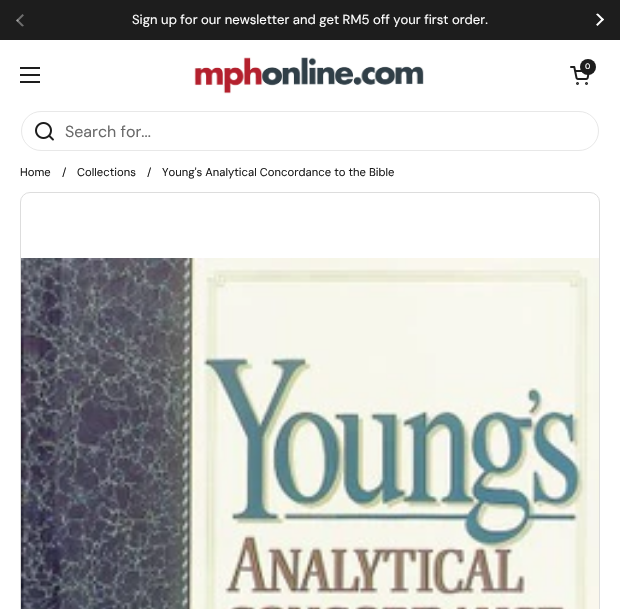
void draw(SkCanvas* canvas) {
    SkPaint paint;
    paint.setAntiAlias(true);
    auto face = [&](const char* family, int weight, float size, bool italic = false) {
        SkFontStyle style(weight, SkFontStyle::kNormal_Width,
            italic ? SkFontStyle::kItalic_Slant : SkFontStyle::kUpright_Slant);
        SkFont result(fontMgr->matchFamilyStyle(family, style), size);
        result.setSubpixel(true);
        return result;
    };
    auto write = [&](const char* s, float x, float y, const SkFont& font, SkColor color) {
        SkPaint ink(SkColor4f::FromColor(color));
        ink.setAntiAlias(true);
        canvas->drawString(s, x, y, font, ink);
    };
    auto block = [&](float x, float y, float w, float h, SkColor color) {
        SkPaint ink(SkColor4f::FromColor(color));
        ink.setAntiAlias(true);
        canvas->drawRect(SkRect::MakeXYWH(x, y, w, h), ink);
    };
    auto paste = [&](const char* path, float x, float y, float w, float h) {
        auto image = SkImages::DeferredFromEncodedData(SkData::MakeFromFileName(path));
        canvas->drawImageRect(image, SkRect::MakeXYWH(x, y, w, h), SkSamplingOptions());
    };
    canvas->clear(SK_ColorWHITE);
    block(0, 0, 620, 40, SkColorSetRGB(29, 29, 29));
    paste("pic1.png", 16, 14, 8, 13);
    auto kFont1 = face("DM Sans", 400, 13.1f);
    write("Sign up for our newsletter and get RM5 off your first order.", 132, 24, kFont1, SK_ColorWHITE);
    paste("pic2.png", 596, 13, 8, 13);
    block(20, 67, 20, 2, SkColorSetRGB(29, 29, 29));
    block(20, 74, 20, 2, SkColorSetRGB(29, 29, 29));
    block(20, 81, 20, 2, SkColorSetRGB(29, 29, 29));
    paste("pic3.png", 194, 57, 230, 37);
    paste("pic4.png", 570, 66, 20, 19);
    paint.setColor(SkColorSetRGB(29, 29, 29));
    canvas->drawCircle(588, 67, 8, paint);
    auto kFont2 = face("DM Sans", 500, 8);
    write("0", 585, 69, kFont2, SK_ColorWHITE);
    paint.setStyle(SkPaint::kStroke_Style);
    paint.setStrokeWidth(1);
    paint.setColor(SkColorSetRGB(232, 232, 232));
    canvas->drawRoundRect(SkRect::MakeXYWH(21.5f, 111.5f, 577, 39), 19.5f, 19.5f, paint);
    paste("pic5.png", 35, 122, 19, 19);
    auto kFont3 = face("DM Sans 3", 400, 16);
    write("Search for...", 65, 137, kFont3, SkColorSetRGB(106, 106, 106));
    auto kFont4 = face("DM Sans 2", 400, 11.25f);
    write("Home", 20, 176, kFont4, SkColorSetRGB(29, 29, 29));
    write("/", 62, 176, kFont4, SkColorSetRGB(29, 29, 29));
    write("Collections", 77, 176, kFont4, SkColorSetRGB(29, 29, 29));
    write("/", 147, 176, kFont4, SkColorSetRGB(29, 29, 29));
    write("Young's Analytical Concordance to the Bible", 162, 176, kFont4, SkColorSetRGB(29, 29, 29));
    paint.setColor(SkColorSetRGB(221, 221, 221));
    canvas->drawRoundRect(SkRect::MakeXYWH(20.5f, 192.5f, 579, 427), 9.5f, 9.5f, paint);
    paste("pic6.png", 21, 258, 578, 351);
}
